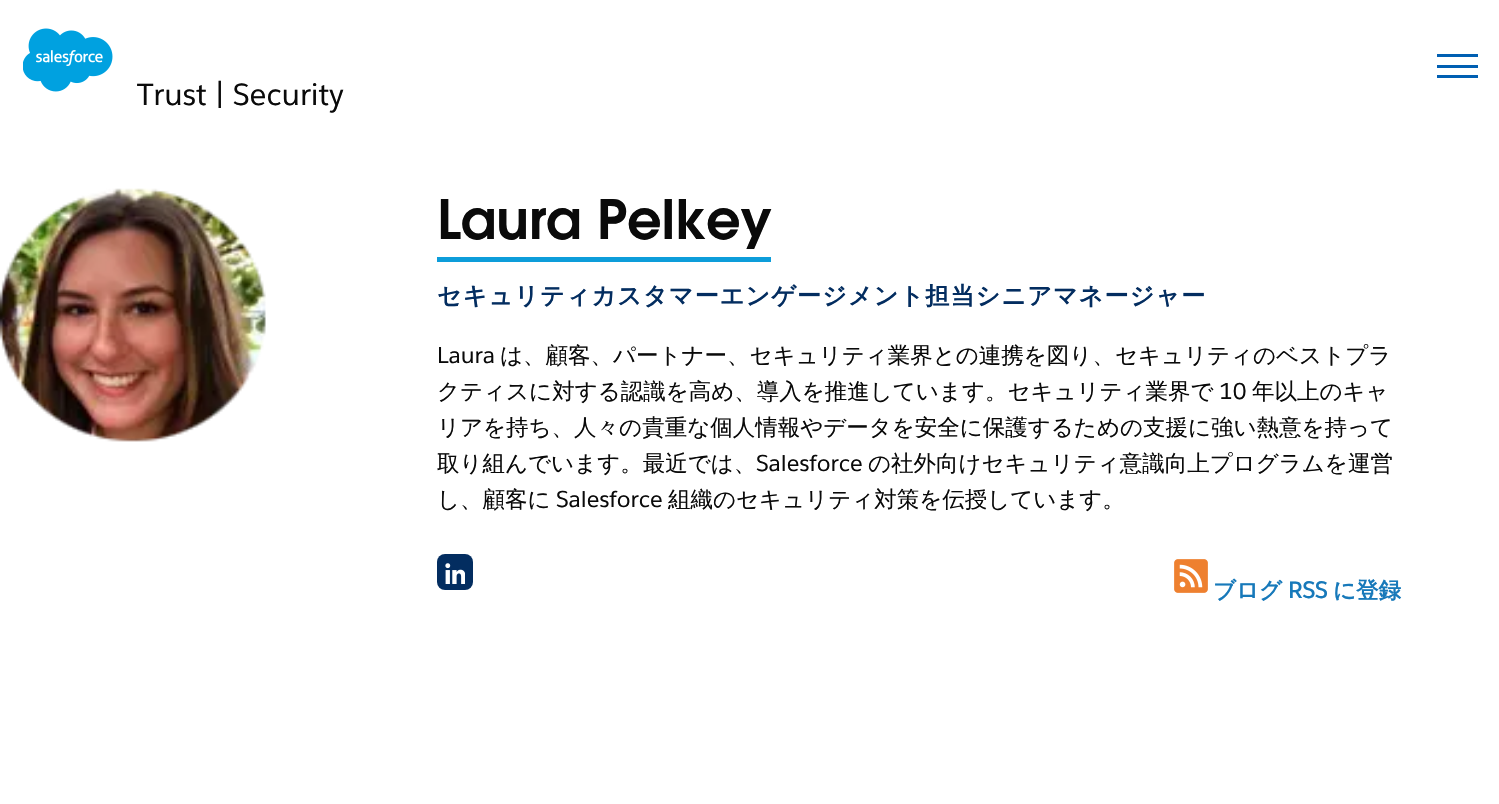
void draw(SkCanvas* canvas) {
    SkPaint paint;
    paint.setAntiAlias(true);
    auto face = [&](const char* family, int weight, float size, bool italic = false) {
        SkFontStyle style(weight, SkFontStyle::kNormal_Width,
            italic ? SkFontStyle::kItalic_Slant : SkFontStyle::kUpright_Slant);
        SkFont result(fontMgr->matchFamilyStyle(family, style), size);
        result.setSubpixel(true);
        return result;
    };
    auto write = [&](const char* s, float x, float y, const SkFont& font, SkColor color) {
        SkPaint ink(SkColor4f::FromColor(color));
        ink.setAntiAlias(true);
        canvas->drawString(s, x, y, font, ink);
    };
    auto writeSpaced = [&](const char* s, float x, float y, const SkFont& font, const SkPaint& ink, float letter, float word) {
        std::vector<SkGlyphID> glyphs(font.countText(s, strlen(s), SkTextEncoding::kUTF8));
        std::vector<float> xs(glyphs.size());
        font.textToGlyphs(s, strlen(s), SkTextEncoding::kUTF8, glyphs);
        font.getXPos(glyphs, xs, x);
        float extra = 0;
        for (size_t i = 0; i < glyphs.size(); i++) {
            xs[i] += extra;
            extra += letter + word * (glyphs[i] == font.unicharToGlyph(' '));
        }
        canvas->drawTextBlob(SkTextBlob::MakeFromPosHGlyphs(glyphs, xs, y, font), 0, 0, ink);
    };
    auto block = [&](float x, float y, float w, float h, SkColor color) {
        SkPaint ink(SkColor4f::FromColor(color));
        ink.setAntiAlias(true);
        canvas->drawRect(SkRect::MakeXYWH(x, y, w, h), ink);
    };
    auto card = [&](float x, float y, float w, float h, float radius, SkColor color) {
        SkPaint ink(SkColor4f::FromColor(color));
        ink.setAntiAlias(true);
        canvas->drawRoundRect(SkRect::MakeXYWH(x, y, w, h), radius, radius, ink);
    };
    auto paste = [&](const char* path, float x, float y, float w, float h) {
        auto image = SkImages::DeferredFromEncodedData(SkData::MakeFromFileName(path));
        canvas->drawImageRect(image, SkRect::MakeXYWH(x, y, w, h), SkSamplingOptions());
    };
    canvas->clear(SK_ColorWHITE);
    block(1437, 65, 41, 3, SkColorSetRGB(0, 95, 178));
    block(1437, 54, 41, 3, SkColorSetRGB(0, 95, 178));
    block(1437, 75, 41, 3, SkColorSetRGB(0, 95, 178));
    paste("pic1.png", 23, 28, 90, 64);
    auto kFont1 = face("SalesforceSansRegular", 400, 30);
    write("Trust | Security", 137, 105, kFont1, SkColorSetRGB(10, 10, 10));
    paste("pic2.png", 0, 188, 266, 254);
    auto kFont2 = face("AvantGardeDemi", 600, 54);
    write("Laura Pelkey", 437, 239, kFont2, SkColorSetRGB(10, 10, 10));
    block(437, 257, 334, 5, SkColorSetRGB(13, 157, 218));
    auto kFont3 = face("WenQuanYi Zen Hei", 700, 24);
    paint.setColor(SkColorSetRGB(3, 45, 96));
    writeSpaced("セキュリティカスタマーエンゲージメント担当シニアマネージャー", 437, 304, kFont3, paint, 1.2f, 0);
    auto kFont4 = face("SalesforceSansRegular", 400, 22.5f);
    write("Laura", 437, 363, kFont4, SkColorSetRGB(10, 10, 10));
    auto kFont5 = face("WenQuanYi Zen Hei", 500, 22.5f);
    write("は、顧客、パートナー、セキュリティ業界との連携を図り、セキュリティのベストプラ", 500, 363, kFont5, SkColorSetRGB(10, 10, 10));
    write("クティスに対する認識を高め、導入を推進しています。セキュリティ業界で", 437, 399, kFont5, SkColorSetRGB(10, 10, 10));
    write("10", 1219, 399, kFont4, SkColorSetRGB(10, 10, 10));
    write("年以上のキャ", 1252, 399, kFont5, SkColorSetRGB(10, 10, 10));
    write("リアを持ち、人々の貴重な個人情報やデータを安全に保護するための支援に強い熱意を持って", 437, 435, kFont5, SkColorSetRGB(10, 10, 10));
    write("取り組んでいます。最近では、", 437, 471, kFont5, SkColorSetRGB(10, 10, 10));
    write("Salesforce", 756, 471, kFont4, SkColorSetRGB(10, 10, 10));
    write("の社外向けセキュリティ意識向上プログラムを運営", 868, 471, kFont5, SkColorSetRGB(10, 10, 10));
    write("し、顧客に", 437, 507, kFont5, SkColorSetRGB(10, 10, 10));
    write("Salesforce", 556, 507, kFont4, SkColorSetRGB(10, 10, 10));
    write("組織のセキュリティ対策を伝授しています。", 668, 507, kFont5, SkColorSetRGB(10, 10, 10));
    card(437, 554, 36, 36, 8, SkColorSetRGB(3, 45, 96));
    paste("pic3.png", 445, 563, 20, 21);
    paste("pic4.png", 1174, 559, 34, 34);
    auto kFont6 = face("WenQuanYi Zen Hei", 700, 22.5f);
    write("ブログ", 1213, 598, kFont6, SkColorSetRGB(23, 121, 186));
    auto kFont7 = face("SalesforceSansRegular", 700, 22.5f);
    write("RSS", 1288, 598, kFont7, SkColorSetRGB(23, 121, 186));
    write("に登録", 1333, 598, kFont6, SkColorSetRGB(23, 121, 186));
}
